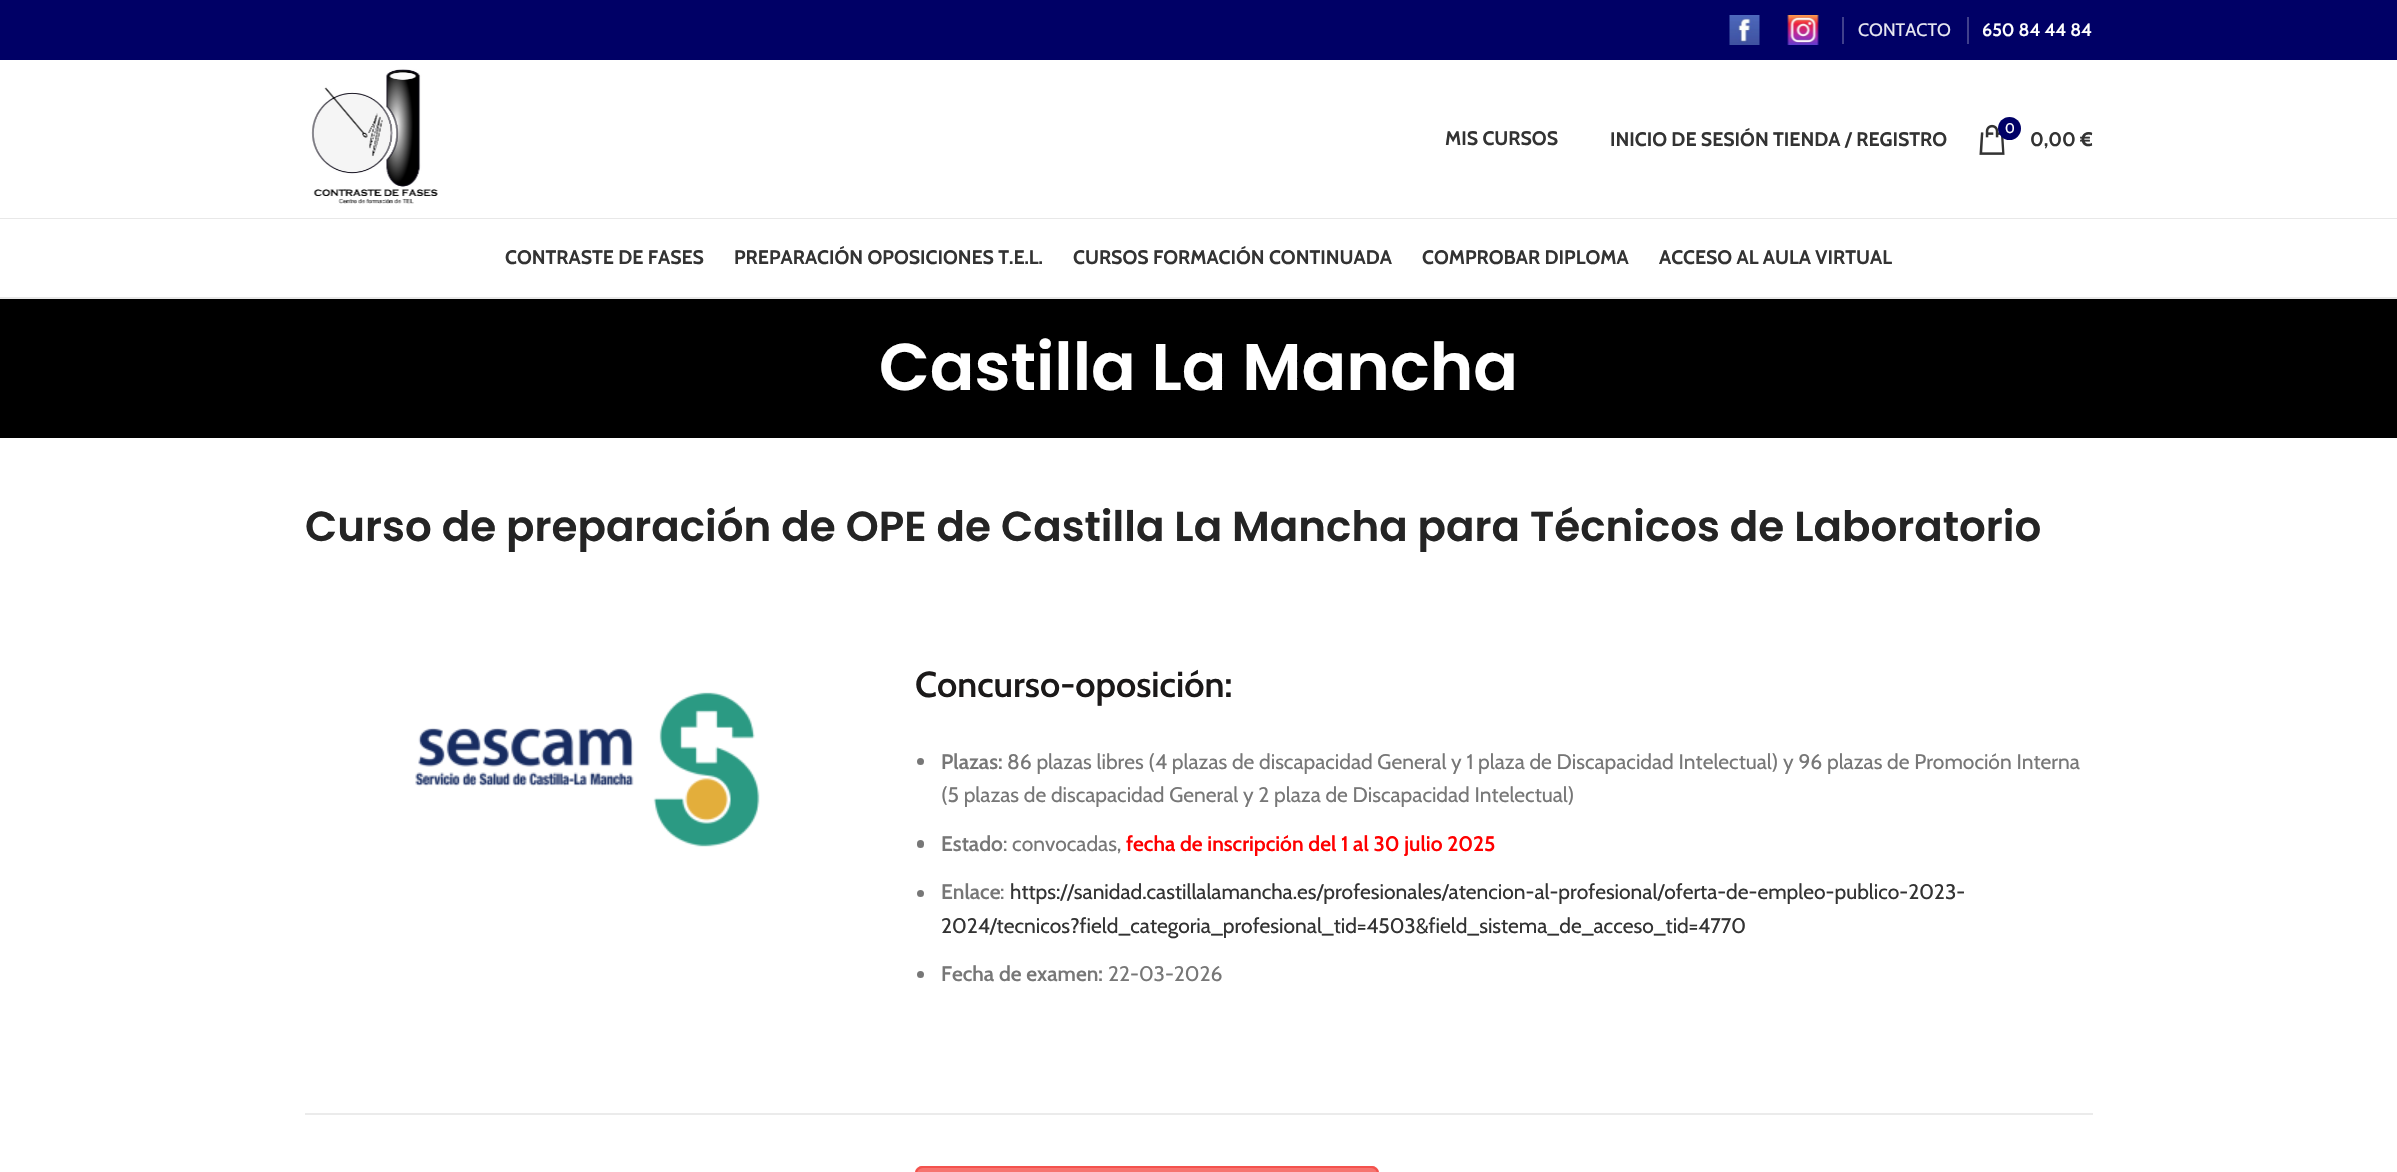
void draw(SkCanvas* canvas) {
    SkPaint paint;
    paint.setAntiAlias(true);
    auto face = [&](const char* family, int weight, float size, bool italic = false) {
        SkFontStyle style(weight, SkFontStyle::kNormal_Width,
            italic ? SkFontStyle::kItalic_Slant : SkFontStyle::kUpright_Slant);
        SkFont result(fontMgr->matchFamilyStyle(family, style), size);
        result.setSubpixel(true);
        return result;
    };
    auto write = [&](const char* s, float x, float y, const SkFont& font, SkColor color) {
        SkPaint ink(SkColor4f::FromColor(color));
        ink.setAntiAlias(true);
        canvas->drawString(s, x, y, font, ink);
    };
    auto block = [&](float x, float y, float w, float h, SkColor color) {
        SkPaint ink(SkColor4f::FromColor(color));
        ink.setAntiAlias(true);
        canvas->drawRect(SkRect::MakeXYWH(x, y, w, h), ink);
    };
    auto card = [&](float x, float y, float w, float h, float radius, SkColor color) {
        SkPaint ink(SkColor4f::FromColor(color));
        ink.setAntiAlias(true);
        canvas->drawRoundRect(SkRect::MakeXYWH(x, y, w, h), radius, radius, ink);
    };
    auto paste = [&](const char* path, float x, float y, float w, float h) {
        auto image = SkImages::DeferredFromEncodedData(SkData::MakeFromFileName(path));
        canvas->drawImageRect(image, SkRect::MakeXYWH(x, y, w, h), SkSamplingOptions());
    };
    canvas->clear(SK_ColorWHITE);
    block(0, 0, 2397, 60, SkColorSetRGB(0, 0, 102));
    paste("pic1.png", 1729, 15, 31, 30);
    paste("pic2.png", 1787, 15, 32, 30);
    block(1842, 17, 2, 27, SkColorSetRGB(64, 64, 140));
    auto kFont1 = face("Cabin", 400, 18);
    write("CONTACTO", 1858, 36, kFont1, SkColorSetRGB(230, 230, 240));
    block(1967, 17, 2, 27, SkColorSetRGB(64, 64, 140));
    auto kFont2 = face("Cabin", 600, 18);
    write("650 84 44 84", 1982, 36, kFont2, SK_ColorWHITE);
    block(0, 218, 2397, 1, SkColorSetRGB(232, 232, 232));
    paste("pic3.png", 311, 69, 127, 135);
    auto kFont3 = face("Cabin", 700, 19.5f);
    write("MIS CURSOS", 1445, 145, kFont3, SkColorSetRGB(51, 51, 51));
    write("INICIO DE SESIÓN TIENDA / REGISTRO", 1610, 146, kFont3, SkColorSetRGB(51, 51, 51));
    paste("pic4.png", 1979, 124, 26, 31);
    paint.setColor(SkColorSetRGB(0, 0, 102));
    canvas->drawCircle(2009.5f, 128.5f, 11.5f, paint);
    auto kFont4 = face("Cabin", 400, 14);
    write("0", 2005, 133, kFont4, SK_ColorWHITE);
    write("0,00 €", 2030, 146, kFont3, SkColorSetRGB(51, 51, 51));
    block(0, 297, 2397, 2, SkColorSetRGB(232, 232, 232));
    write("CONTRASTE DE FASES", 505, 264, kFont3, SkColorSetRGB(51, 51, 51));
    write("PREPARACIÓN OPOSICIONES T.E.L.", 734, 264, kFont3, SkColorSetRGB(51, 51, 51));
    write("CURSOS FORMACIÓN CONTINUADA", 1073, 264, kFont3, SkColorSetRGB(51, 51, 51));
    write("COMPROBAR DIPLOMA", 1422, 264, kFont3, SkColorSetRGB(51, 51, 51));
    write("ACCESO AL AULA VIRTUAL", 1659, 264, kFont3, SkColorSetRGB(51, 51, 51));
    block(0, 299, 2397, 139, SK_ColorBLACK);
    auto kFont5 = face("Poppins", 600, 66);
    write("Castilla La Mancha", 879, 390, kFont5, SK_ColorWHITE);
    auto kFont6 = face("Poppins", 600, 42);
    write("Curso de preparación de OPE de Castilla La Mancha para Técnicos de Laboratorio", 305, 541, kFont6, SkColorSetRGB(36, 36, 36));
    paste("pic5.png", 415, 692, 345, 155);
    auto kFont7 = face("Cabin", 600, 36);
    write("Concurso-oposición:", 915, 697, kFont7, SkColorSetRGB(27, 25, 25));
    paint.setColor(SkColorSetRGB(119, 119, 119));
    canvas->drawCircle(920.5f, 761.5f, 3.5f, paint);
    auto kFont8 = face("Cabin", 600, 21);
    write("Plazas:", 941, 769, kFont8, SkColorSetRGB(119, 119, 119));
    auto kFont9 = face("Cabin", 400, 21);
    write("86 plazas libres (4 plazas de discapacidad General y 1 plaza de Discapacidad Intelectual) y 96 plazas de Promoción Interna", 1007, 769, kFont9, SkColorSetRGB(119, 119, 119));
    write("(5 plazas de discapacidad General y 2 plaza de Discapacidad Intelectual)", 941, 802, kFont9, SkColorSetRGB(119, 119, 119));
    card(917, 840, 7, 8, 3.5f, SkColorSetRGB(119, 119, 119));
    write("Estado", 941, 851, kFont8, SkColorSetRGB(119, 119, 119));
    write(": convocadas,", 1003, 851, kFont9, SkColorSetRGB(119, 119, 119));
    write("fecha de inscripción del 1 al 30 julio 2025", 1126, 851, kFont8, SkColorSetRGB(255, 0, 0));
    canvas->drawCircle(920.5f, 893.5f, 3.5f, paint);
    write("Enlace", 941, 899, kFont8, SkColorSetRGB(119, 119, 119));
    write(":", 1000, 899, kFont9, SkColorSetRGB(119, 119, 119));
    write("https://sanidad.castillalamancha.es/profesionales/atencion-al-profesional/oferta-de-empleo-publico-2023-", 1010, 899, kFont9, SkColorSetRGB(51, 51, 51));
    write("2024/tecnicos?field_categoria_profesional_tid=4503&field_sistema_de_acceso_tid=4770", 941, 933, kFont9, SkColorSetRGB(51, 51, 51));
    canvas->drawCircle(920.5f, 974.5f, 3.5f, paint);
    write("Fecha de examen:", 941, 981, kFont8, SkColorSetRGB(119, 119, 119));
    write("22-03-2026", 1108, 981, kFont9, SkColorSetRGB(119, 119, 119));
    block(305, 1113, 1788, 2, SkColorSetRGB(235, 235, 235));
    card(915, 1166, 464, 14, 8, SkColorSetRGB(244, 82, 77));
    canvas->save();
    canvas->clipPath(SkPathBuilder().moveTo(923, 1166).lineTo(1371, 1166).cubicTo(1375.5f, 1166, 1379, 1169.5f, 1379, 1174).lineTo(1379, 1230).cubicTo(1379, 1234.5f, 1375.5f, 1238, 1371, 1238).lineTo(923, 1238).cubicTo(918.5f, 1238, 915, 1234.5f, 915, 1230).lineTo(915, 1174).cubicTo(915, 1169.5f, 918.5f, 1166, 923, 1166).close().detach(), true);
    {
        const SkColor colors[] = {SkColorSetARGB(51, 255, 255, 255), SkColorSetARGB(3, 255, 255, 255)};
        const float stops[] = {0, 1};
        const SkPoint ends[] = {{1147, 1167}, {1147, 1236}};
        paint.setShader(SkGradientShader::MakeLinear(ends, colors, stops, 2, SkTileMode::kClamp));
        paint.setAlpha(255);
    }
    canvas->drawRect(SkRect::MakeXYWH(915, 1167, 464, 5), paint);
    canvas->restore();
    paint.setStyle(SkPaint::kStroke_Style);
    paint.setStrokeWidth(2);
    paint.setShader(nullptr);
    paint.setColor(SkColorSetRGB(244, 82, 77));
    canvas->drawRoundRect(SkRect::MakeXYWH(916, 1167, 462, 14), 7, 7, paint);
}
